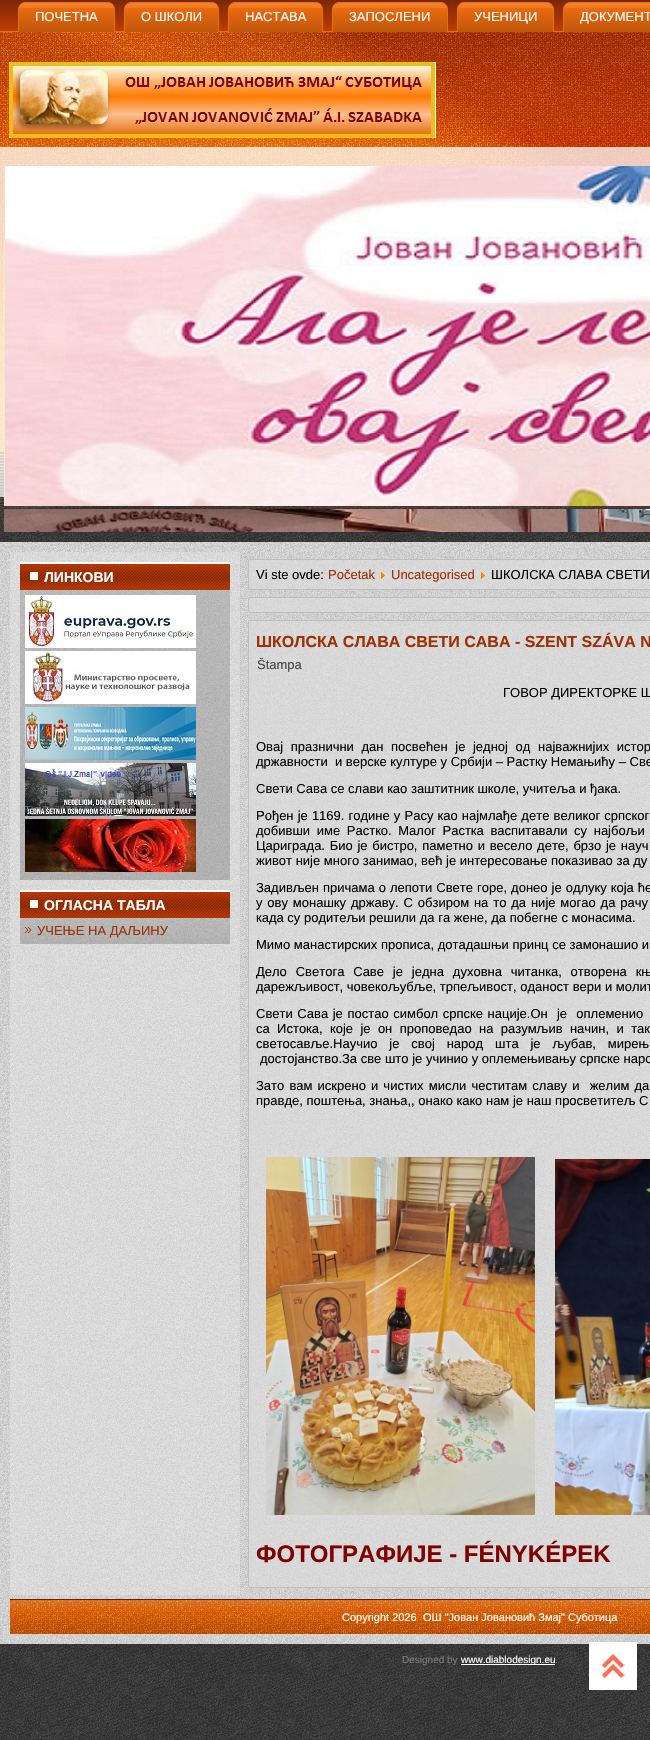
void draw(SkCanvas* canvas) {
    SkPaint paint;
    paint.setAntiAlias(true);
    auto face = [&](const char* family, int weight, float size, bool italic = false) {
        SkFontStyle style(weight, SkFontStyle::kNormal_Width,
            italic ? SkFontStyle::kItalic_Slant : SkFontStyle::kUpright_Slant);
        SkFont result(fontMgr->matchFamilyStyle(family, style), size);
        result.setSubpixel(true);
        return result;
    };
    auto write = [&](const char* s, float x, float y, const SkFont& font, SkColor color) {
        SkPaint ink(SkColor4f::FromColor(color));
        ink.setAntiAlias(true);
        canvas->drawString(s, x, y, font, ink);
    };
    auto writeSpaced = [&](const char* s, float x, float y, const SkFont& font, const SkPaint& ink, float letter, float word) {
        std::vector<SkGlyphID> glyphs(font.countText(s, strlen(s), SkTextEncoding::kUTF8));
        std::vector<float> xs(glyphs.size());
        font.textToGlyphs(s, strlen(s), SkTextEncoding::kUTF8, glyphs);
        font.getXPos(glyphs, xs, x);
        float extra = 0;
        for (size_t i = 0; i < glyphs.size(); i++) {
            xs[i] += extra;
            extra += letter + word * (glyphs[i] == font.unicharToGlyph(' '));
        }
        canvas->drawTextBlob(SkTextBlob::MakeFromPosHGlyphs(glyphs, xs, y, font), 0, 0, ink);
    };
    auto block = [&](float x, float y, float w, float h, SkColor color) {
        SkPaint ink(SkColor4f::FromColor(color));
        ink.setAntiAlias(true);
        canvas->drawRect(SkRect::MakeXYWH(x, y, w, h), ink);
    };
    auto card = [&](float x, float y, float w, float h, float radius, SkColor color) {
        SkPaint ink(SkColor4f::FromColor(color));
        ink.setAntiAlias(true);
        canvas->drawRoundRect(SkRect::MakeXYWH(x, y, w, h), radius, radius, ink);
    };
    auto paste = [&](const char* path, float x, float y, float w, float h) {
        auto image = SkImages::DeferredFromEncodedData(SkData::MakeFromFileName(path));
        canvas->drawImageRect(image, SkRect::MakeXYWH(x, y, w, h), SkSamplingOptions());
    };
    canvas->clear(SkColorSetRGB(61, 61, 61));
    paste("pic1.png", 0, 532, 650, 1208);
    {
        const SkColor colors[] = {SkColorSetRGB(124, 38, 4), SkColorSetRGB(198, 60, 6)};
        const float stops[] = {0, 1};
        const SkPoint ends[] = {{480, 0}, {480, 32}};
        paint.setShader(SkGradientShader::MakeLinear(ends, colors, stops, 2, SkTileMode::kClamp));
        paint.setAlpha(255);
    }
    canvas->drawRect(SkRect::MakeXYWH(0, 0, 650, 31), paint);
    block(0, 31, 563, 1, SkColorSetRGB(217, 118, 13));
    {
        const SkColor colors[] = {SkColorSetRGB(243, 132, 53), SkColorSetRGB(243, 126, 43), SkColorSetRGB(242, 120, 33), SkColorSetRGB(241, 109, 14), SkColorSetRGB(236, 106, 14), SkColorSetRGB(217, 98, 13), SkColorSetRGB(193, 87, 11)};
        const float stops[] = {0, 0.1f, 0.2f, 0.2f, 0.2f, 0.5f, 1};
        const SkPoint ends[] = {{67, 2}, {67, 32}};
        paint.setShader(SkGradientShader::MakeLinear(ends, colors, stops, 7, SkTileMode::kClamp));
        paint.setAlpha(255);
    }
    canvas->drawPath(SkPathBuilder().moveTo(26, 2).lineTo(107, 2).cubicTo(111.5f, 2, 115, 5.5f, 115, 10).lineTo(115, 32).lineTo(18, 32).lineTo(18, 10).cubicTo(18, 5.5f, 21.5f, 2, 26, 2).close().detach(), paint);
    paint.setShader(nullptr);
    paint.setColor(SkColorSetRGB(217, 118, 13));
    canvas->drawPath(SkPathBuilder(SkPathFillType::kEvenOdd).moveTo(26, 2).lineTo(107, 2).cubicTo(111, 2, 115, 6, 115, 10).lineTo(115, 32).lineTo(18, 32).lineTo(18, 10).cubicTo(18, 6, 22, 2, 26, 2).close().moveTo(26, 3).lineTo(107, 3).cubicTo(111, 3, 114, 6, 114, 10).lineTo(114, 32).lineTo(19, 32).lineTo(19, 10).cubicTo(19, 6, 22, 3, 26, 3).close().detach(), paint);
    auto kFont1 = face("Liberation Sans", 400, 13);
    write("ПОЧЕТНА", 35, 21, kFont1, SK_ColorWHITE);
    paste("pic2.png", 119, 4, 1, 25);
    {
        const SkColor colors[] = {SkColorSetRGB(243, 132, 53), SkColorSetRGB(243, 126, 43), SkColorSetRGB(242, 120, 33), SkColorSetRGB(241, 109, 14), SkColorSetRGB(236, 106, 14), SkColorSetRGB(217, 98, 13), SkColorSetRGB(193, 87, 11)};
        const float stops[] = {0, 0.1f, 0.2f, 0.2f, 0.2f, 0.5f, 1};
        const SkPoint ends[] = {{172, 2}, {172, 32}};
        paint.setShader(SkGradientShader::MakeLinear(ends, colors, stops, 7, SkTileMode::kClamp));
        paint.setAlpha(255);
    }
    canvas->drawPath(SkPathBuilder().moveTo(132, 2).lineTo(211, 2).cubicTo(215.5f, 2, 219, 5.5f, 219, 10).lineTo(219, 32).lineTo(124, 32).lineTo(124, 10).cubicTo(124, 5.5f, 127.5f, 2, 132, 2).close().detach(), paint);
    paint.setShader(nullptr);
    paint.setColor(SkColorSetRGB(217, 118, 13));
    canvas->drawPath(SkPathBuilder(SkPathFillType::kEvenOdd).moveTo(132, 2).lineTo(211, 2).cubicTo(215, 2, 219, 6, 219, 10).lineTo(219, 32).lineTo(124, 32).lineTo(124, 10).cubicTo(124, 6, 128, 2, 132, 2).close().moveTo(132, 3).lineTo(211, 3).cubicTo(215, 3, 218, 6, 218, 10).lineTo(218, 32).lineTo(125, 32).lineTo(125, 10).cubicTo(125, 6, 128, 3, 132, 3).close().detach(), paint);
    write("О ШКОЛИ", 141, 21, kFont1, SK_ColorWHITE);
    paste("pic2.png", 223, 4, 1, 25);
    {
        const SkColor colors[] = {SkColorSetRGB(243, 132, 53), SkColorSetRGB(243, 126, 43), SkColorSetRGB(242, 120, 33), SkColorSetRGB(241, 109, 14), SkColorSetRGB(236, 106, 14), SkColorSetRGB(217, 98, 13), SkColorSetRGB(193, 87, 11)};
        const float stops[] = {0, 0.1f, 0.2f, 0.2f, 0.2f, 0.5f, 1};
        const SkPoint ends[] = {{276, 2}, {276, 32}};
        paint.setShader(SkGradientShader::MakeLinear(ends, colors, stops, 7, SkTileMode::kClamp));
        paint.setAlpha(255);
    }
    canvas->drawPath(SkPathBuilder().moveTo(236, 2).lineTo(315, 2).cubicTo(319.5f, 2, 323, 5.5f, 323, 10).lineTo(323, 32).lineTo(228, 32).lineTo(228, 10).cubicTo(228, 5.5f, 231.5f, 2, 236, 2).close().detach(), paint);
    paint.setShader(nullptr);
    paint.setColor(SkColorSetRGB(217, 118, 13));
    canvas->drawPath(SkPathBuilder(SkPathFillType::kEvenOdd).moveTo(236, 2).lineTo(315, 2).cubicTo(319, 2, 323, 6, 323, 10).lineTo(323, 32).lineTo(228, 32).lineTo(228, 10).cubicTo(228, 6, 232, 2, 236, 2).close().moveTo(236, 3).lineTo(315, 3).cubicTo(319, 3, 322, 6, 322, 10).lineTo(322, 32).lineTo(229, 32).lineTo(229, 10).cubicTo(229, 6, 232, 3, 236, 3).close().detach(), paint);
    write("НАСТАВА", 245, 21, kFont1, SK_ColorWHITE);
    paste("pic2.png", 327, 4, 1, 25);
    {
        const SkColor colors[] = {SkColorSetRGB(243, 132, 53), SkColorSetRGB(243, 126, 43), SkColorSetRGB(242, 120, 33), SkColorSetRGB(241, 109, 14), SkColorSetRGB(236, 106, 14), SkColorSetRGB(217, 98, 13), SkColorSetRGB(193, 87, 11)};
        const float stops[] = {0, 0.1f, 0.2f, 0.2f, 0.2f, 0.5f, 1};
        const SkPoint ends[] = {{390, 2}, {390, 32}};
        paint.setShader(SkGradientShader::MakeLinear(ends, colors, stops, 7, SkTileMode::kClamp));
        paint.setAlpha(255);
    }
    canvas->drawPath(SkPathBuilder().moveTo(340, 2).lineTo(440, 2).cubicTo(444.5f, 2, 448, 5.5f, 448, 10).lineTo(448, 32).lineTo(332, 32).lineTo(332, 10).cubicTo(332, 5.5f, 335.5f, 2, 340, 2).close().detach(), paint);
    paint.setShader(nullptr);
    paint.setColor(SkColorSetRGB(217, 118, 13));
    canvas->drawPath(SkPathBuilder(SkPathFillType::kEvenOdd).moveTo(340, 2).lineTo(440, 2).cubicTo(444, 2, 448, 6, 448, 10).lineTo(448, 32).lineTo(332, 32).lineTo(332, 10).cubicTo(332, 6, 336, 2, 340, 2).close().moveTo(340, 3).lineTo(440, 3).cubicTo(444, 3, 447, 6, 447, 10).lineTo(447, 32).lineTo(333, 32).lineTo(333, 10).cubicTo(333, 6, 336, 3, 340, 3).close().detach(), paint);
    write("ЗАПОСЛЕНИ", 349, 21, kFont1, SK_ColorWHITE);
    paste("pic2.png", 452, 4, 1, 25);
    {
        const SkColor colors[] = {SkColorSetRGB(243, 132, 53), SkColorSetRGB(243, 126, 43), SkColorSetRGB(242, 120, 33), SkColorSetRGB(241, 109, 14), SkColorSetRGB(236, 106, 14), SkColorSetRGB(217, 98, 13), SkColorSetRGB(193, 87, 11)};
        const float stops[] = {0, 0.1f, 0.2f, 0.2f, 0.2f, 0.5f, 1};
        const SkPoint ends[] = {{506, 2}, {506, 32}};
        paint.setShader(SkGradientShader::MakeLinear(ends, colors, stops, 7, SkTileMode::kClamp));
        paint.setAlpha(255);
    }
    canvas->drawPath(SkPathBuilder().moveTo(465, 2).lineTo(546, 2).cubicTo(550.5f, 2, 554, 5.5f, 554, 10).lineTo(554, 32).lineTo(457, 32).lineTo(457, 10).cubicTo(457, 5.5f, 460.5f, 2, 465, 2).close().detach(), paint);
    paint.setShader(nullptr);
    paint.setColor(SkColorSetRGB(217, 118, 13));
    canvas->drawPath(SkPathBuilder(SkPathFillType::kEvenOdd).moveTo(465, 2).lineTo(546, 2).cubicTo(550, 2, 554, 6, 554, 10).lineTo(554, 32).lineTo(457, 32).lineTo(457, 10).cubicTo(457, 6, 461, 2, 465, 2).close().moveTo(465, 3).lineTo(546, 3).cubicTo(550, 3, 553, 6, 553, 10).lineTo(553, 32).lineTo(458, 32).lineTo(458, 10).cubicTo(458, 6, 461, 3, 465, 3).close().detach(), paint);
    write("УЧЕНИЦИ", 474, 21, kFont1, SK_ColorWHITE);
    paste("pic2.png", 558, 4, 1, 25);
    {
        const SkColor colors[] = {SkColorSetRGB(243, 132, 53), SkColorSetRGB(243, 126, 43), SkColorSetRGB(242, 120, 33), SkColorSetRGB(241, 109, 14), SkColorSetRGB(236, 106, 14), SkColorSetRGB(217, 98, 13), SkColorSetRGB(193, 87, 11)};
        const float stops[] = {0, 0.1f, 0.2f, 0.2f, 0.2f, 0.5f, 1};
        const SkPoint ends[] = {{620, 2}, {620, 32}};
        paint.setShader(SkGradientShader::MakeLinear(ends, colors, stops, 7, SkTileMode::kClamp));
        paint.setAlpha(255);
    }
    canvas->drawPath(SkPathBuilder().moveTo(571, 2).lineTo(650, 2).cubicTo(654.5f, 2, 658, 5.5f, 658, 10).lineTo(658, 32).lineTo(563, 32).lineTo(563, 10).cubicTo(563, 5.5f, 566.5f, 2, 571, 2).close().detach(), paint);
    paint.setShader(nullptr);
    paint.setColor(SkColorSetRGB(217, 118, 13));
    canvas->drawPath(SkPathBuilder(SkPathFillType::kEvenOdd).moveTo(571, 2).lineTo(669, 2).cubicTo(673, 2, 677, 6, 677, 10).lineTo(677, 32).lineTo(563, 32).lineTo(563, 10).cubicTo(563, 6, 567, 2, 571, 2).close().moveTo(571, 3).lineTo(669, 3).cubicTo(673, 3, 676, 6, 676, 10).lineTo(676, 32).lineTo(564, 32).lineTo(564, 10).cubicTo(564, 6, 567, 3, 571, 3).close().detach(), paint);
    write("ДОКУМЕНТ", 580, 21, kFont1, SK_ColorWHITE);
    paste("pic3.png", 0, 32, 650, 500);
    paste("pic4.png", 9, 62, 427, 76);
    block(0, 147, 650, 350, SkColorSetARGB(189, 255, 255, 255));
    paste("pic5.png", 4, 166, 646, 340);
    paste("pic6.png", 4, 509, 646, 23);
    paste("pic7.png", 36, 506, 614, 3);
    paste("pic8.png", 0, 542, 650, 1102);
    block(10, 552, 231, 1043, SkColorSetARGB(102, 232, 232, 232));
    paint.setStyle(SkPaint::kStroke_Style);
    paint.setStrokeWidth(1);
    paint.setColor(SkColorSetRGB(191, 191, 191));
    paint.setPathEffect(SkDashPathEffect::Make({{1, 1}}, 0));
    canvas->drawPath(SkPathBuilder().moveTo(240.5f, 552).lineTo(240.5f, 1595).detach(), paint);
    paint.setPathEffect(nullptr);
    paste("pic9.png", 20, 564, 210, 26);
    block(20, 562, 210, 2, SK_ColorWHITE);
    block(30, 572, 8, 8, SK_ColorWHITE);
    auto kFont2 = face("Liberation Sans", 700, 14);
    write("ЛИНКОВИ", 44, 582, kFont2, SK_ColorWHITE);
    paint.setStyle(SkPaint::kFill_Style);
    {
        const SkColor colors[] = {SkColorSetARGB(51, 51, 51, 51), SkColorSetARGB(51, 13, 13, 13)};
        const float stops[] = {0, 1};
        const SkPoint ends[] = {{125, 590}, {125, 880}};
        paint.setShader(SkGradientShader::MakeLinear(ends, colors, stops, 2, SkTileMode::kClamp));
        paint.setAlpha(255);
    }
    canvas->drawRect(SkRect::MakeXYWH(20, 590, 210, 290), paint);
    paste("pic10.png", 25, 595, 171, 53);
    paste("pic11.png", 25, 651, 171, 53);
    paste("pic12.png", 25, 707, 171, 53);
    paste("pic13.png", 25, 763, 171, 53);
    paste("pic14.png", 25, 819, 171, 53);
    paste("pic15.png", 20, 892, 210, 26);
    block(20, 890, 210, 2, SK_ColorWHITE);
    block(30, 900, 8, 8, SK_ColorWHITE);
    write("ОГЛАСНА ТАБЛА", 44, 910, kFont2, SK_ColorWHITE);
    {
        const SkColor colors[] = {SkColorSetARGB(51, 51, 51, 51), SkColorSetARGB(51, 13, 13, 13)};
        const float stops[] = {0, 1};
        const SkPoint ends[] = {{125, 918}, {125, 944}};
        paint.setShader(SkGradientShader::MakeLinear(ends, colors, stops, 2, SkTileMode::kClamp));
        paint.setAlpha(255);
    }
    canvas->drawRect(SkRect::MakeXYWH(20, 918, 210, 26), paint);
    paste("pic16.png", 25, 927, 6, 6);
    write("УЧЕЊЕ НА ДАЉИНУ", 37, 935, kFont1, SkColorSetRGB(158, 48, 5));
    card(248, 559, 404, 31, 2, SkColorSetARGB(153, 222, 222, 222));
    paint.setStyle(SkPaint::kStroke_Style);
    paint.setShader(nullptr);
    paint.setColor(SkColorSetARGB(153, 171, 171, 171));
    canvas->drawRoundRect(SkRect::MakeXYWH(248.5f, 559.5f, 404, 30), 1.5f, 1.5f, paint);
    write("Vi ste ovde:", 256, 579, kFont1, SK_ColorBLACK);
    write("Početak", 328, 579, kFont1, SkColorSetRGB(158, 48, 5));
    paste("pic17.png", 381, 572, 4, 7);
    write("Uncategorised", 391, 579, kFont1, SkColorSetRGB(158, 48, 5));
    paste("pic18.png", 481, 572, 4, 7);
    write("ШКОЛСКА СЛАВА СВЕТИ", 491, 579, kFont1, SK_ColorBLACK);
    card(248, 597, 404, 16, 2, SkColorSetARGB(153, 222, 222, 222));
    canvas->drawRoundRect(SkRect::MakeXYWH(248.5f, 597.5f, 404, 15), 1.5f, 1.5f, paint);
    card(248, 620, 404, 968, 2, SkColorSetARGB(153, 222, 222, 222));
    canvas->drawRoundRect(SkRect::MakeXYWH(248.5f, 620.5f, 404, 967), 1.5f, 1.5f, paint);
    auto kFont3 = face("Liberation Sans", 700, 16);
    write("ШКОЛСКА СЛАВА СВЕТИ САВА - SZENT SZÁVA N", 256, 647, kFont3, SkColorSetRGB(158, 48, 5));
    write("Štampa", 257, 669, kFont1, SkColorSetRGB(69, 69, 69));
    write("ГОВОР ДИРЕКТОРКЕ Ш", 503, 697, kFont1, SK_ColorBLACK);
    paint.setStyle(SkPaint::kFill_Style);
    paint.setColor(SK_ColorBLACK);
    writeSpaced("Овај празнични дан посвећен је једној од најважнијих истор", 256, 751, kFont1, paint, 0, 4);
    write("државности  и верске културе у Србији – Растку Немањићу – Све", 256, 766, kFont1, SK_ColorBLACK);
    write("Свети Сава се слави као заштитник школе, учитеља и ђака.", 256, 793, kFont1, SK_ColorBLACK);
    writeSpaced("Рођен је 1169. године у Расу као најмлађе дете великог српског", 256, 820, kFont1, paint, 0, 0.5f);
    writeSpaced("добивши име Растко. Малог Растка васпитавали су најбољи", 256, 835, kFont1, paint, 0, 3);
    writeSpaced("Цариграда. Био је бистро, паметно и весело дете, брзо је науч", 256, 850, kFont1, paint, 0, 1.1f);
    write("живот није много занимао, већ је интересовање показивао за ду", 256, 865, kFont1, SK_ColorBLACK);
    writeSpaced("Задивљен причама о лепоти Свете горе, донео је одлуку која ће", 256, 892, kFont1, paint, 0, 0.4f);
    writeSpaced("у ову монашку државу. С обзиром на то да није могао да рачу", 256, 907, kFont1, paint, 0, 1.25f);
    write("када су родитељи решили да га жене, да побегне с монасима.", 256, 922, kFont1, SK_ColorBLACK);
    write("Мимо манастирских прописа, дотадашњи принц се замонашио и", 256, 949, kFont1, SK_ColorBLACK);
    writeSpaced("Дело Светога Саве је једна духовна читанка, отворена књ", 256, 976, kFont1, paint, 0, 5.25f);
    write("дарежљивост, човекољубље, трпељивост, оданост вери и молит", 256, 991, kFont1, SK_ColorBLACK);
    writeSpaced("Свети Сава је постао симбол српске нације.Он  је  оплеменио", 256, 1018, kFont1, paint, 0, 1);
    writeSpaced("са Истока, које је он проповедао на разумљив начин, и так", 256, 1033, kFont1, paint, 0, 3.75f);
    writeSpaced("светосавље.Научио је свој народ шта је љубав, мирењ", 256, 1048, kFont1, paint, 0, 8.25f);
    write("достојанство.За све што је учинио у оплемењивању српске наро", 260, 1063, kFont1, SK_ColorBLACK);
    writeSpaced("Зато вам искрено и чистих мисли честитам славу и  желим да", 256, 1090, kFont1, paint, 0, 1.5f);
    write("правде, поштења, знања,, онако како нам је наш просветитељ С", 256, 1105, kFont1, SK_ColorBLACK);
    paste("pic19.png", 266, 1157, 269, 358);
    paste("pic20.png", 555, 1159, 95, 356);
    auto kFont4 = face("Liberation Sans", 700, 24);
    write("ФОТОГРАФИЈЕ - FÉNYKÉPEK", 256, 1562, kFont4, SkColorSetRGB(128, 0, 0));
    paste("pic21.png", 10, 1600, 640, 34);
    block(10, 1599, 640, 1, SkColorSetRGB(105, 32, 3));
    auto kFont5 = face("Liberation Sans", 400, 11);
    write("Copyright 2026", 342, 1621, kFont5, SK_ColorWHITE);
    write("ОШ \"Јован Јовановић Змај\" Суботица", 423, 1621, kFont5, SK_ColorWHITE);
    auto kFont6 = face("Liberation Sans", 400, 10);
    write("Designed by", 402, 1663, kFont6, SkColorSetRGB(125, 125, 125));
    block(461, 1664, 94, 1, SK_ColorWHITE);
    write("www.diablodesign.eu", 461, 1663, kFont6, SK_ColorWHITE);
    write(".", 555, 1663, kFont6, SkColorSetRGB(125, 125, 125));
    block(589, 1642, 48, 48, SK_ColorWHITE);
    paste("pic22.png", 602, 1654, 23, 24);
}
